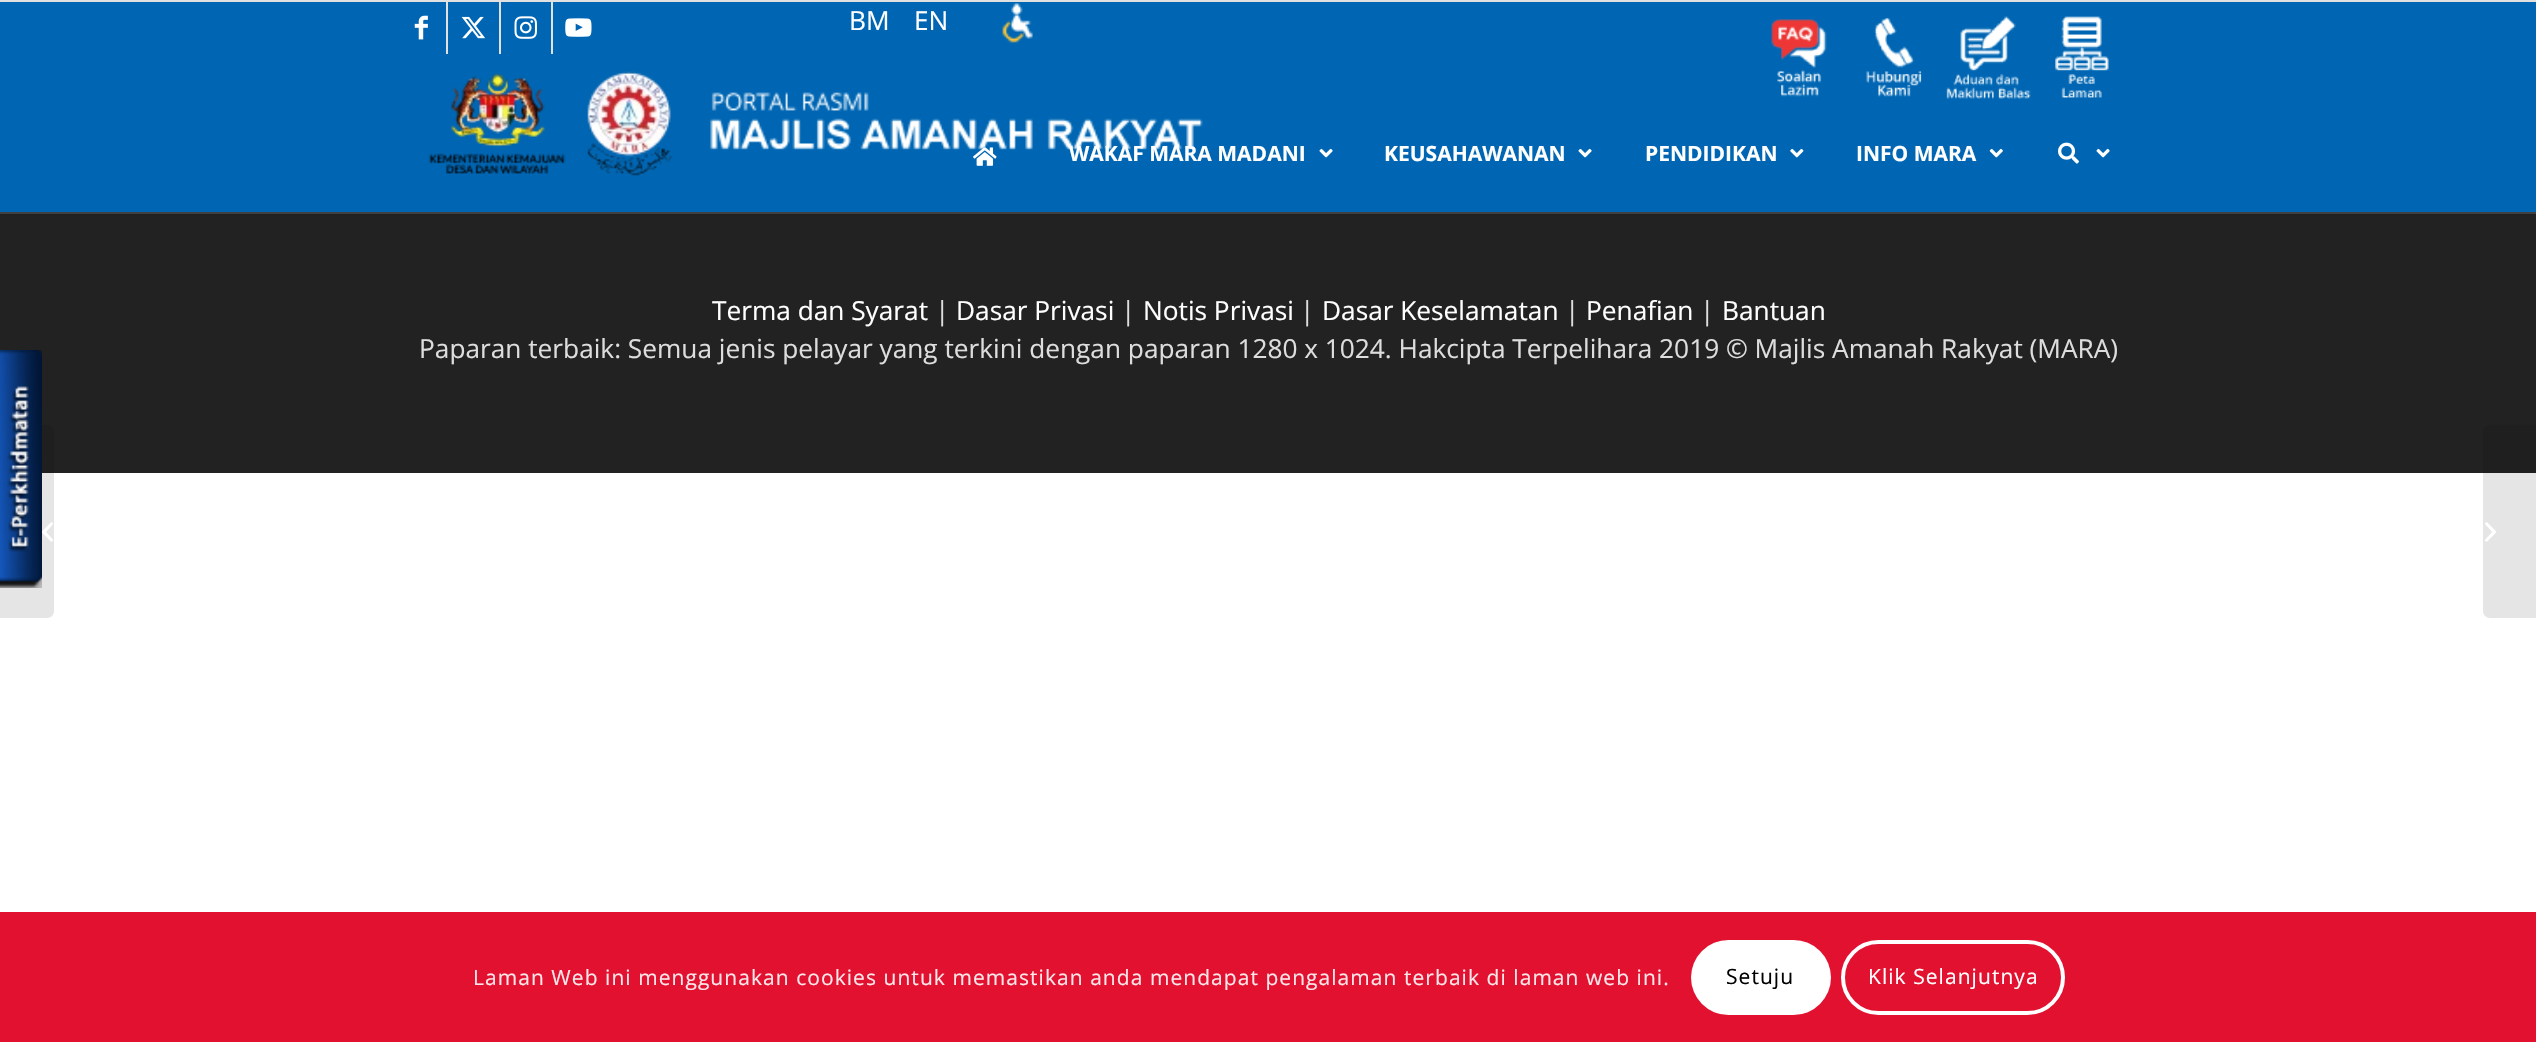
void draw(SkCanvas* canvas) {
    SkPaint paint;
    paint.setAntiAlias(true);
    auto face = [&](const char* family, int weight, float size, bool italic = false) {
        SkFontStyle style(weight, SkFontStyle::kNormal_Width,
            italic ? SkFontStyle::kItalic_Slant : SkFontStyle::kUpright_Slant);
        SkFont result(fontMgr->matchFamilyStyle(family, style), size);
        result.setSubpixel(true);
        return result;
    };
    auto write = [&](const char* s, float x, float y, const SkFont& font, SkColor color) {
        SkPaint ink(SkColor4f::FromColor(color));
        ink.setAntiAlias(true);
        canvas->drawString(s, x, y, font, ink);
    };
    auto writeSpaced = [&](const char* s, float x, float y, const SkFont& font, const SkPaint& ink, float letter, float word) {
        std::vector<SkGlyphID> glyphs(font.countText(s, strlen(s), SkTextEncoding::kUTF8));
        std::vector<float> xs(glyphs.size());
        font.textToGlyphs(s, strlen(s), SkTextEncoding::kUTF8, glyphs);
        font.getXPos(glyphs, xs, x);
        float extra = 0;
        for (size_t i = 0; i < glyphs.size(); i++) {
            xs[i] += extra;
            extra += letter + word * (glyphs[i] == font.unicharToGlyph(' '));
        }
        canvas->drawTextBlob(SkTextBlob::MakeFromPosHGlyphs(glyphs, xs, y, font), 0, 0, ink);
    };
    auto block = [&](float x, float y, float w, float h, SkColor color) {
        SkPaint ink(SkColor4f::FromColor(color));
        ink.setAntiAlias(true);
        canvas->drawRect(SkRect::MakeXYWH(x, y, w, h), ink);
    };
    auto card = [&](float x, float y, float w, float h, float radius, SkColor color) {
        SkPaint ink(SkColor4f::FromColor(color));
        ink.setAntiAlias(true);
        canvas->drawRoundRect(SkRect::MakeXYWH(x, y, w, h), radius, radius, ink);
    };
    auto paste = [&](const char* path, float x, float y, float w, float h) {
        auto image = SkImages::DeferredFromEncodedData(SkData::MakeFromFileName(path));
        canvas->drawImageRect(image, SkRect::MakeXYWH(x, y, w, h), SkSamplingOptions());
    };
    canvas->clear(SK_ColorWHITE);
    block(0, 214, 2536, 259, SkColorSetRGB(34, 34, 34));
    block(0, 212, 2536, 2, SkColorSetRGB(68, 68, 68));
    paint.setColor(SkColorSetARGB(26, 0, 0, 0));
    paint.setMaskFilter(SkMaskFilter::MakeBlur(kNormal_SkBlurStyle, 2));
    canvas->drawRect(SkRect::MakeXYWH(-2, -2, 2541, 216), paint);
    paint.setMaskFilter(nullptr);
    block(0, 0, 2536, 2, SkColorSetRGB(225, 225, 225));
    block(0, 2, 2536, 210, SkColorSetRGB(0, 102, 179));
    block(446, 2, 2, 52, SkColorSetRGB(225, 225, 225));
    paste("pic1.png", 414, 15, 14, 25);
    block(499, 2, 2, 52, SkColorSetRGB(225, 225, 225));
    paste("pic2.png", 461, 16, 25, 23);
    block(551, 2, 2, 52, SkColorSetRGB(225, 225, 225));
    paste("pic3.png", 514, 16, 23, 23);
    paste("pic4.png", 565, 18, 27, 19);
    auto kFont1 = face("Open Sans", 400, 26.25f);
    write("BM", 849, 30, kFont1, SK_ColorWHITE);
    write("EN", 914, 30, kFont1, SK_ColorWHITE);
    paste("pic5.png", 1002, 3, 31, 40);
    paste("pic6.png", 1771, 19, 56, 78);
    paste("pic7.png", 1866, 18, 56, 79);
    paste("pic8.png", 1946, 16, 85, 83);
    paste("pic9.png", 2055, 16, 54, 82);
    paste("pic10.png", 428, 71, 775, 105);
    paste("pic11.png", 973, 147, 24, 19);
    auto kFont2 = face("Open Sans", 700, 21);
    write("WAKAF MARA MADANI", 1069, 161, kFont2, SK_ColorWHITE);
    paste("pic12.png", 1319, 148, 14, 10);
    write("KEUSAHAWANAN", 1384, 161, kFont2, SK_ColorWHITE);
    paste("pic12.png", 1578, 148, 14, 10);
    write("PENDIDIKAN", 1645, 161, kFont2, SK_ColorWHITE);
    paste("pic13.png", 1790, 148, 14, 10);
    write("INFO MARA", 1856, 161, kFont2, SK_ColorWHITE);
    paste("pic14.png", 1989, 148, 14, 10);
    paste("pic15.png", 2058, 142, 21, 22);
    paste("pic12.png", 2096, 148, 14, 10);
    write("Terma dan Syarat", 712, 320, kFont1, SK_ColorWHITE);
    write("|", 935, 320, kFont1, SkColorSetRGB(221, 221, 221));
    write("Dasar Privasi", 956, 320, kFont1, SK_ColorWHITE);
    write("|", 1121, 320, kFont1, SkColorSetRGB(221, 221, 221));
    write("Notis Privasi", 1143, 320, kFont1, SK_ColorWHITE);
    write("|", 1300, 320, kFont1, SkColorSetRGB(221, 221, 221));
    write("Dasar Keselamatan", 1322, 320, kFont1, SK_ColorWHITE);
    write("|", 1565, 320, kFont1, SkColorSetRGB(221, 221, 221));
    write("Penafian", 1586, 320, kFont1, SK_ColorWHITE);
    write("|", 1700, 320, kFont1, SkColorSetRGB(221, 221, 221));
    write("Bantuan", 1722, 320, kFont1, SK_ColorWHITE);
    write("Paparan terbaik: Semua jenis pelayar yang terkini dengan paparan 1280 x 1024. Hakcipta Terpelihara 2019 © Majlis Amanah Rakyat (MARA)", 419, 358, kFont1, SkColorSetRGB(221, 221, 221));
    canvas->drawPath(SkPathBuilder().moveTo(0, 425).lineTo(47, 425).cubicTo(51, 425, 54, 428, 54, 432).lineTo(54, 611).cubicTo(54, 615, 51, 618, 47, 618).lineTo(0, 618).close().detach(), paint);
    paste("pic16.png", 42, 522, 11, 20);
    canvas->drawPath(SkPathBuilder().moveTo(2490, 425).lineTo(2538, 425).lineTo(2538, 618).lineTo(2490, 618).cubicTo(2486, 618, 2483, 615, 2483, 611).lineTo(2483, 432).cubicTo(2483, 428, 2486, 425, 2490, 425).close().detach(), paint);
    paste("pic17.png", 2485, 522, 11, 20);
    paste("pic18.png", 0, 350, 42, 238);
    paste("pic19.png", 0, 350, 42, 238);
    block(0, 912, 2536, 130, SkColorSetRGB(226, 17, 48));
    auto kFont3 = face("Open Sans", 400, 21);
    paint.setColor(SkColorSetRGB(252, 231, 234));
    writeSpaced("Laman Web ini menggunakan cookies untuk memastikan anda mendapat pengalaman terbaik di laman web ini.", 473, 985, kFont3, paint, 1.05f, 0);
    card(1691, 940, 140, 75, 37.5f, SK_ColorWHITE);
    paint.setColor(SK_ColorBLACK);
    writeSpaced("Setuju", 1726, 984, kFont3, paint, 1.05f, 0);
    paint.setStyle(SkPaint::kStroke_Style);
    paint.setStrokeWidth(4);
    paint.setColor(SK_ColorWHITE);
    canvas->drawRoundRect(SkRect::MakeXYWH(1843, 942, 220, 71), 35.5f, 35.5f, paint);
    paint.setStyle(SkPaint::kFill_Style);
    writeSpaced("Klik Selanjutnya", 1868, 984, kFont3, paint, 1.05f, 0);
}
